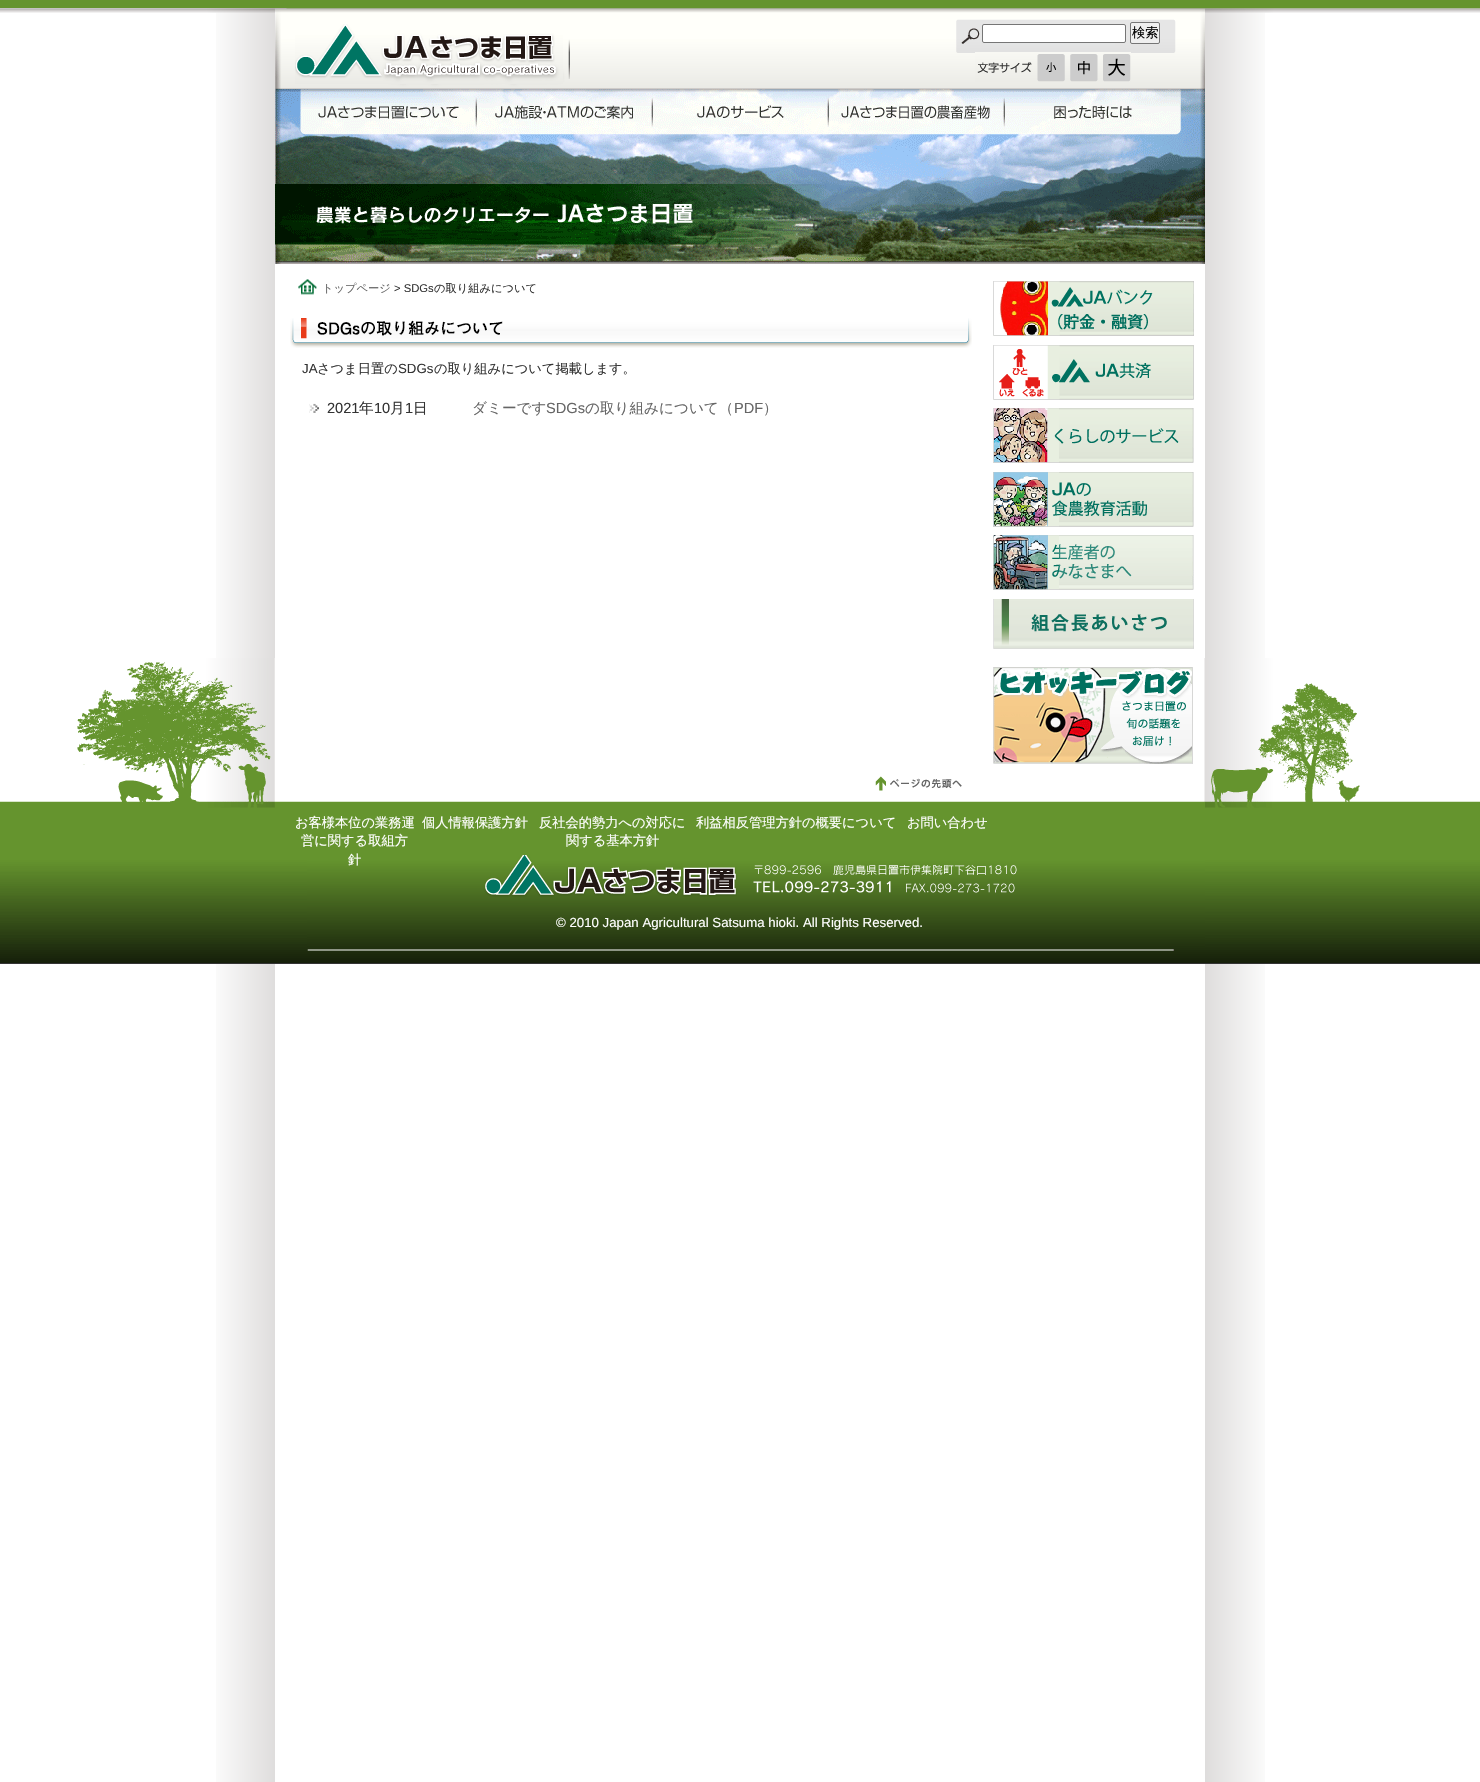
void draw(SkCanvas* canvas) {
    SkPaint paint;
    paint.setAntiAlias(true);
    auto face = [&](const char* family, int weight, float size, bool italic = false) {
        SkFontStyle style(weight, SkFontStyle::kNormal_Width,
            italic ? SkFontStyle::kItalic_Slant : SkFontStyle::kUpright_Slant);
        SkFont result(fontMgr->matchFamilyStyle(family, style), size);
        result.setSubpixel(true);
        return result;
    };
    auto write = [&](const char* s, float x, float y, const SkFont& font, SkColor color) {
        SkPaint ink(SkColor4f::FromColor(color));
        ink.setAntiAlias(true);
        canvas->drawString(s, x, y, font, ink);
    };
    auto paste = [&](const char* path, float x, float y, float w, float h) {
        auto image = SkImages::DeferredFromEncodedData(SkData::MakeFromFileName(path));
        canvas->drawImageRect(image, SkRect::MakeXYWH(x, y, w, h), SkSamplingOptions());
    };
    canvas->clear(SK_ColorWHITE);
    paste("pic1.png", 216, 13, 1049, 1769);
    paste("pic2.png", 0, 658, 1480, 306);
    paste("pic3.png", 0, 0, 1480, 13);
    paste("pic4.png", 275, 0, 930, 89);
    paste("pic5.png", 295, 24, 268, 60);
    paint.setColor(SK_ColorWHITE);
    canvas->drawRoundRect(SkRect::MakeXYWH(982.5f, 24.5f, 143, 18), 1.5f, 1.5f, paint);
    paint.setStyle(SkPaint::kStroke_Style);
    paint.setStrokeWidth(1);
    paint.setColor(SkColorSetRGB(118, 118, 118));
    canvas->drawRoundRect(SkRect::MakeXYWH(982.5f, 24.5f, 143, 18), 1.5f, 1.5f, paint);
    paint.setStyle(SkPaint::kFill_Style);
    paint.setColor(SkColorSetRGB(239, 239, 239));
    canvas->drawRoundRect(SkRect::MakeXYWH(1130.5f, 22.5f, 29, 21), 1.5f, 1.5f, paint);
    paint.setStyle(SkPaint::kStroke_Style);
    paint.setColor(SkColorSetRGB(118, 118, 118));
    canvas->drawRoundRect(SkRect::MakeXYWH(1130.5f, 22.5f, 29, 21), 1.5f, 1.5f, paint);
    auto kFont1 = face("WenQuanYi Zen Hei", 500, 13.25f);
    write("検索", 1132, 37, kFont1, SK_ColorBLACK);
    paste("pic6.png", 975, 52, 156, 30);
    paste("pic7.png", 275, 89, 930, 175);
    paste("pic8.png", 298, 279, 19, 16);
    auto kFont2 = face("WenQuanYi Zen Hei", 500, 11.25f);
    write("トップページ", 322, 292, kFont2, SkColorSetRGB(102, 102, 102));
    auto kFont3 = face("Liberation Sans", 400, 11.25f);
    write("> SDGs", 394, 292, kFont3, SkColorSetRGB(51, 51, 51));
    write("の取り組みについて", 434, 292, kFont2, SkColorSetRGB(51, 51, 51));
    paste("pic9.png", 290, 318, 682, 30);
    auto kFont4 = face("Liberation Sans", 400, 13.25f);
    write("JA", 302, 373, kFont4, SkColorSetRGB(51, 51, 51));
    write("さつま日置の", 317, 373, kFont1, SkColorSetRGB(51, 51, 51));
    write("SDGs", 398, 373, kFont4, SkColorSetRGB(51, 51, 51));
    write("の取り組みについて掲載します。", 434, 373, kFont1, SkColorSetRGB(51, 51, 51));
    paste("pic10.png", 309, 403, 10, 10);
    auto kFont5 = face("Liberation Sans", 400, 14.6f);
    write("2021", 327, 413, kFont5, SkColorSetRGB(51, 51, 51));
    auto kFont6 = face("WenQuanYi Zen Hei", 500, 14.6f);
    write("年", 359, 413, kFont6, SkColorSetRGB(51, 51, 51));
    write("10", 374, 413, kFont5, SkColorSetRGB(51, 51, 51));
    write("月", 390, 413, kFont6, SkColorSetRGB(51, 51, 51));
    write("1", 405, 413, kFont5, SkColorSetRGB(51, 51, 51));
    write("日", 413, 413, kFont6, SkColorSetRGB(51, 51, 51));
    write("ダミーです", 472, 413, kFont6, SkColorSetRGB(102, 102, 102));
    write("SDGs", 546, 413, kFont5, SkColorSetRGB(102, 102, 102));
    write("の取り組みについて（", 585, 413, kFont6, SkColorSetRGB(102, 102, 102));
    write("PDF", 734, 413, kFont5, SkColorSetRGB(102, 102, 102));
    write("）", 763, 413, kFont6, SkColorSetRGB(102, 102, 102));
    paste("pic11.png", 993, 281, 201, 55);
    paste("pic12.png", 993, 345, 201, 55);
    paste("pic13.png", 993, 408, 201, 55);
    paste("pic14.png", 993, 472, 201, 55);
    paste("pic15.png", 993, 535, 201, 55);
    paste("pic16.png", 993, 599, 201, 50);
    paste("pic17.png", 993, 667, 200, 97);
    paste("pic18.png", 875, 776, 87, 15);
    paste("pic19.png", 307, 802, 898, 149);
    write("お客様本位の業務運", 295, 827, kFont1, SK_ColorWHITE);
    write("営に関する取組方", 301, 845, kFont1, SK_ColorWHITE);
    write("針", 348, 864, kFont1, SK_ColorWHITE);
    write("個人情報保護方針", 422, 827, kFont1, SK_ColorWHITE);
    write("反社会的勢力への対応に", 539, 827, kFont1, SK_ColorWHITE);
    write("関する基本方針", 566, 845, kFont1, SK_ColorWHITE);
    write("利益相反管理方針の概要について", 696, 827, kFont1, SK_ColorWHITE);
    write("お問い合わせ", 907, 827, kFont1, SK_ColorWHITE);
    write("© 2010 Japan Agricultural Satsuma hioki. All Rights Reserved.", 556, 927, kFont4, SK_ColorWHITE);
}
